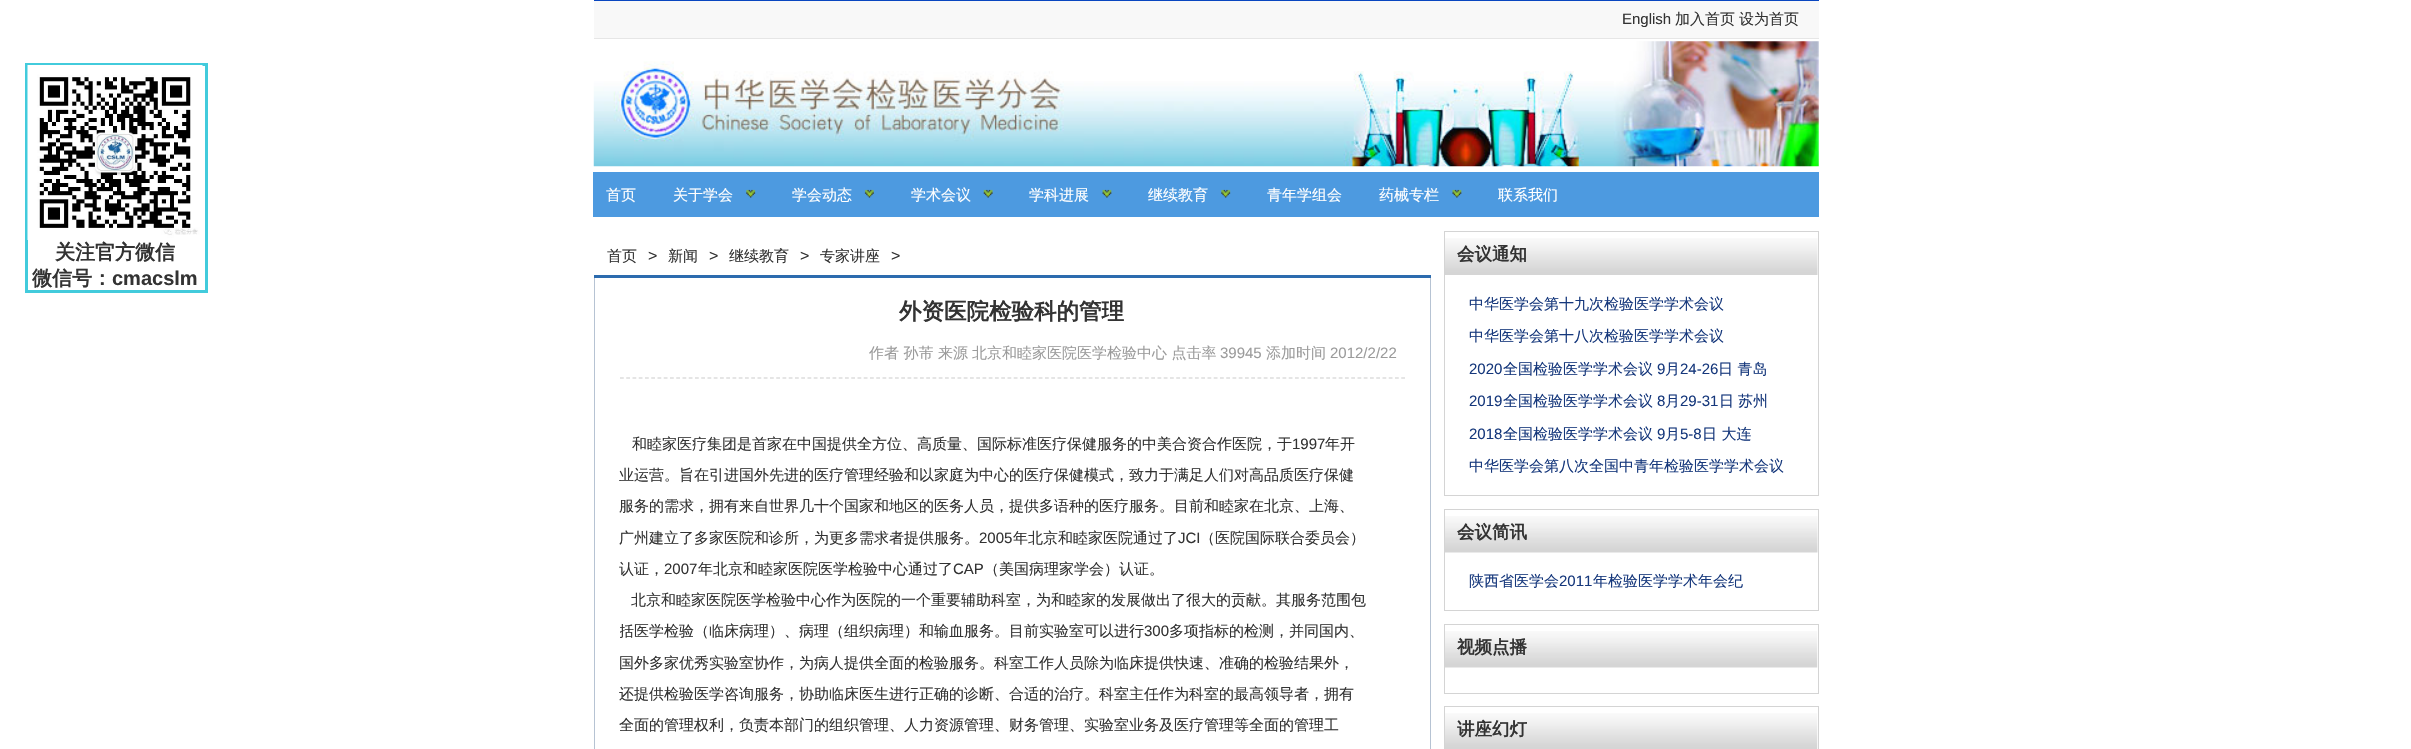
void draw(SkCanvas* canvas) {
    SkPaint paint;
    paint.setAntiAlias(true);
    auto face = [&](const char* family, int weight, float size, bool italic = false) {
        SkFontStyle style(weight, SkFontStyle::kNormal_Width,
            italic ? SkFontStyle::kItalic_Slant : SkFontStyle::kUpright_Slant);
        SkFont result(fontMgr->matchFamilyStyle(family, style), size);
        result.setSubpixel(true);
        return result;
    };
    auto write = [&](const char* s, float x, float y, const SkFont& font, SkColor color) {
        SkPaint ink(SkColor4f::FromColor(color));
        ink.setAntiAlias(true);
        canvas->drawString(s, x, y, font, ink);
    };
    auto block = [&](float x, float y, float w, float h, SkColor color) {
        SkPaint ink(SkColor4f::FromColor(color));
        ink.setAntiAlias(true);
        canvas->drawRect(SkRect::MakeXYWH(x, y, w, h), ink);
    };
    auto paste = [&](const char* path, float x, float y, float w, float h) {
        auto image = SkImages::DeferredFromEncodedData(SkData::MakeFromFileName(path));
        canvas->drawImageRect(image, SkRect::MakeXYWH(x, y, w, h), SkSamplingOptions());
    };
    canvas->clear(SK_ColorWHITE);
    block(594, 1, 1225, 37, SkColorSetRGB(248, 248, 248));
    block(594, 0, 1225, 1, SkColorSetRGB(9, 70, 192));
    block(594, 38, 1225, 1, SkColorSetRGB(230, 230, 230));
    auto kFont1 = face("Liberation Sans", 400, 15);
    write("English", 1622, 24, kFont1, SkColorSetRGB(51, 51, 51));
    auto kFont2 = face("WenQuanYi Zen Hei", 500, 15);
    write("加入首页", 1675, 24, kFont2, SkColorSetRGB(51, 51, 51));
    write("设为首页", 1739, 24, kFont2, SkColorSetRGB(51, 51, 51));
    paste("pic1.png", 593, 41, 1226, 126);
    block(593, 172, 1226, 45, SkColorSetRGB(77, 154, 224));
    write("首页", 606, 200, kFont2, SK_ColorWHITE);
    write("关于学会", 673, 200, kFont2, SK_ColorWHITE);
    paste("pic2.png", 746, 189, 10, 9);
    write("学会动态", 792, 200, kFont2, SK_ColorWHITE);
    paste("pic3.png", 864, 189, 10, 9);
    write("学术会议", 911, 200, kFont2, SK_ColorWHITE);
    paste("pic4.png", 983, 189, 10, 9);
    write("学科进展", 1029, 200, kFont2, SK_ColorWHITE);
    paste("pic5.png", 1102, 189, 10, 9);
    write("继续教育", 1148, 200, kFont2, SK_ColorWHITE);
    paste("pic2.png", 1221, 189, 10, 9);
    write("青年学组会", 1267, 200, kFont2, SK_ColorWHITE);
    write("药械专栏", 1379, 200, kFont2, SK_ColorWHITE);
    paste("pic6.png", 1452, 189, 10, 9);
    write("联系我们", 1498, 200, kFont2, SK_ColorWHITE);
    paint.setStyle(SkPaint::kStroke_Style);
    paint.setStrokeWidth(3);
    paint.setColor(SkColorSetRGB(66, 203, 220));
    canvas->drawRect(SkRect::MakeXYWH(26.5f, 64.5f, 180, 227), paint);
    paste("pic7.png", 27, 65, 176, 175);
    auto kFont3 = face("WenQuanYi Zen Hei", 700, 20);
    write("关注官方微信", 55, 259, kFont3, SkColorSetRGB(51, 51, 51));
    write("微信号：", 32, 285, kFont3, SkColorSetRGB(51, 51, 51));
    auto kFont4 = face("Liberation Sans", 700, 20);
    write("cmacslm", 112, 285, kFont4, SkColorSetRGB(51, 51, 51));
    block(594, 275, 837, 3, SkColorSetRGB(44, 107, 174));
    write("首页", 607, 261, kFont2, SkColorSetRGB(51, 51, 51));
    auto kFont5 = face("Liberation Sans", 400, 16);
    write(">", 648, 261, kFont5, SkColorSetRGB(51, 51, 51));
    write("新闻", 668, 261, kFont2, SkColorSetRGB(51, 51, 51));
    write(">", 709, 261, kFont5, SkColorSetRGB(51, 51, 51));
    write("继续教育", 729, 261, kFont2, SkColorSetRGB(51, 51, 51));
    write(">", 800, 261, kFont5, SkColorSetRGB(51, 51, 51));
    write("专家讲座", 820, 261, kFont2, SkColorSetRGB(51, 51, 51));
    write(">", 891, 261, kFont5, SkColorSetRGB(51, 51, 51));
    block(1430, 278, 1, 471, SkColorSetRGB(182, 195, 211));
    block(594, 278, 1, 471, SkColorSetRGB(182, 195, 211));
    paint.setStrokeWidth(1.2f);
    paint.setColor(SkColorSetRGB(204, 204, 204));
    paint.setPathEffect(SkDashPathEffect::Make({{3.75f, 2.5f}}, 0));
    canvas->drawPath(SkPathBuilder().moveTo(620, 378).lineTo(1405, 378).detach(), paint);
    paint.setPathEffect(nullptr);
    auto kFont6 = face("WenQuanYi Zen Hei", 700, 22.5f);
    write("外资医院检验科的管理", 899, 319, kFont6, SkColorSetRGB(51, 51, 51));
    write("作者 孙芾 来源", 869, 358, kFont2, SkColorSetRGB(155, 155, 155));
    write("北京和睦家医院医学检验中心 点击率", 972, 358, kFont2, SkColorSetRGB(155, 155, 155));
    write("39945", 1220, 358, kFont1, SkColorSetRGB(155, 155, 155));
    write("添加时间", 1266, 358, kFont2, SkColorSetRGB(155, 155, 155));
    write("2012/2/22", 1330, 358, kFont1, SkColorSetRGB(155, 155, 155));
    write("和睦家医疗集团是首家在中国提供全方位、高质量、国际标准医疗保健服务的中美合资合作医院，于", 632, 449, kFont2, SkColorSetRGB(51, 51, 51));
    write("1997", 1292, 449, kFont1, SkColorSetRGB(51, 51, 51));
    write("年开", 1325, 449, kFont2, SkColorSetRGB(51, 51, 51));
    write("业运营。旨在引进国外先进的医疗管理经验和以家庭为中心的医疗保健模式，致力于满足人们对高品质医疗保健", 619, 480, kFont2, SkColorSetRGB(51, 51, 51));
    write("服务的需求，拥有来自世界几十个国家和地区的医务人员，提供多语种的医疗服务。目前和睦家在北京、上海、", 619, 511, kFont2, SkColorSetRGB(51, 51, 51));
    write("广州建立了多家医院和诊所，为更多需求者提供服务。", 619, 543, kFont2, SkColorSetRGB(51, 51, 51));
    write("2005", 979, 543, kFont1, SkColorSetRGB(51, 51, 51));
    write("年北京和睦家医院通过了", 1013, 543, kFont2, SkColorSetRGB(51, 51, 51));
    write("JCI", 1178, 543, kFont1, SkColorSetRGB(51, 51, 51));
    write("（医院国际联合委员会）", 1200, 543, kFont2, SkColorSetRGB(51, 51, 51));
    write("认证，", 619, 574, kFont2, SkColorSetRGB(51, 51, 51));
    write("2007", 664, 574, kFont1, SkColorSetRGB(51, 51, 51));
    write("年北京和睦家医院医学检验中心通过了", 698, 574, kFont2, SkColorSetRGB(51, 51, 51));
    write("CAP", 953, 574, kFont1, SkColorSetRGB(51, 51, 51));
    write("（美国病理家学会）认证。", 984, 574, kFont2, SkColorSetRGB(51, 51, 51));
    write("北京和睦家医院医学检验中心作为医院的一个重要辅助科室，为和睦家的发展做出了很大的贡献。其服务范围包", 631, 605, kFont2, SkColorSetRGB(51, 51, 51));
    canvas->save();
    canvas->clipRect(SkRect::MakeXYWH(620, 416, 748, 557));
    write("括医学检验（临床病理）、病理（组织病理）和输血服务。目前实验室可以进行", 619, 636, kFont2, SkColorSetRGB(51, 51, 51));
    canvas->restore();
    write("300", 1144, 636, kFont1, SkColorSetRGB(51, 51, 51));
    write("多项指标的检测，并同国内、", 1169, 636, kFont2, SkColorSetRGB(51, 51, 51));
    write("国外多家优秀实验室协作，为病人提供全面的检验服务。科室工作人员除为临床提供快速、准确的检验结果外，", 619, 668, kFont2, SkColorSetRGB(51, 51, 51));
    write("还提供检验医学咨询服务，协助临床医生进行正确的诊断、合适的治疗。科室主任作为科室的最高领导者，拥有", 619, 699, kFont2, SkColorSetRGB(51, 51, 51));
    write("全面的管理权利，负责本部门的组织管理、人力资源管理、财务管理、实验室业务及医疗管理等全面的管理工", 619, 730, kFont2, SkColorSetRGB(51, 51, 51));
    paint.setStrokeWidth(1);
    paint.setColor(SkColorSetRGB(212, 212, 212));
    canvas->drawRect(SkRect::MakeXYWH(1444.5f, 231.5f, 374, 264), paint);
    paste("pic8.png", 1445, 238, 373, 37);
    auto kFont7 = face("WenQuanYi Zen Hei", 700, 17.5f);
    write("会议通知", 1457, 260, kFont7, SkColorSetRGB(51, 51, 51));
    write("中华医学会第十九次检验医学学术会议", 1469, 309, kFont2, SkColorSetRGB(22, 56, 124));
    write("中华医学会第十八次检验医学学术会议", 1469, 341, kFont2, SkColorSetRGB(22, 56, 124));
    write("2020", 1469, 374, kFont1, SkColorSetRGB(22, 56, 124));
    write("全国检验医学学术会议", 1503, 374, kFont2, SkColorSetRGB(22, 56, 124));
    write("9", 1657, 374, kFont1, SkColorSetRGB(22, 56, 124));
    write("月", 1665, 374, kFont2, SkColorSetRGB(22, 56, 124));
    write("24-26", 1680, 374, kFont1, SkColorSetRGB(22, 56, 124));
    write("日 青岛", 1718, 374, kFont2, SkColorSetRGB(22, 56, 124));
    write("2019", 1469, 406, kFont1, SkColorSetRGB(22, 56, 124));
    write("全国检验医学学术会议", 1503, 406, kFont2, SkColorSetRGB(22, 56, 124));
    write("8", 1657, 406, kFont1, SkColorSetRGB(22, 56, 124));
    write("月", 1665, 406, kFont2, SkColorSetRGB(22, 56, 124));
    write("29-31", 1680, 406, kFont1, SkColorSetRGB(22, 56, 124));
    write("日", 1719, 406, kFont2, SkColorSetRGB(22, 56, 124));
    write("苏州", 1738, 406, kFont2, SkColorSetRGB(22, 56, 124));
    write("2018", 1469, 439, kFont1, SkColorSetRGB(22, 56, 124));
    write("全国检验医学学术会议", 1503, 439, kFont2, SkColorSetRGB(22, 56, 124));
    write("9", 1657, 439, kFont1, SkColorSetRGB(22, 56, 124));
    write("月", 1665, 439, kFont2, SkColorSetRGB(22, 56, 124));
    write("5-8", 1680, 439, kFont1, SkColorSetRGB(22, 56, 124));
    write("日 大连", 1702, 439, kFont2, SkColorSetRGB(22, 56, 124));
    write("中华医学会第八次全国中青年检验医学学术会议", 1469, 471, kFont2, SkColorSetRGB(22, 56, 124));
    canvas->drawRect(SkRect::MakeXYWH(1444.5f, 509.5f, 374, 101), paint);
    paste("pic9.png", 1445, 516, 373, 37);
    write("会议简讯", 1457, 538, kFont7, SkColorSetRGB(51, 51, 51));
    write("陕西省医学会", 1469, 586, kFont2, SkColorSetRGB(22, 56, 124));
    write("2011", 1559, 586, kFont1, SkColorSetRGB(22, 56, 124));
    write("年检验医学学术年会纪", 1593, 586, kFont2, SkColorSetRGB(22, 56, 124));
    canvas->drawRect(SkRect::MakeXYWH(1444.5f, 624.5f, 374, 69), paint);
    paste("pic10.png", 1445, 631, 373, 37);
    write("视频点播", 1457, 653, kFont7, SkColorSetRGB(51, 51, 51));
    canvas->drawRect(SkRect::MakeXYWH(1444.5f, 706.5f, 374, 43), paint);
    paste("pic11.png", 1445, 713, 373, 36);
    write("讲座幻灯", 1457, 735, kFont7, SkColorSetRGB(51, 51, 51));
}
